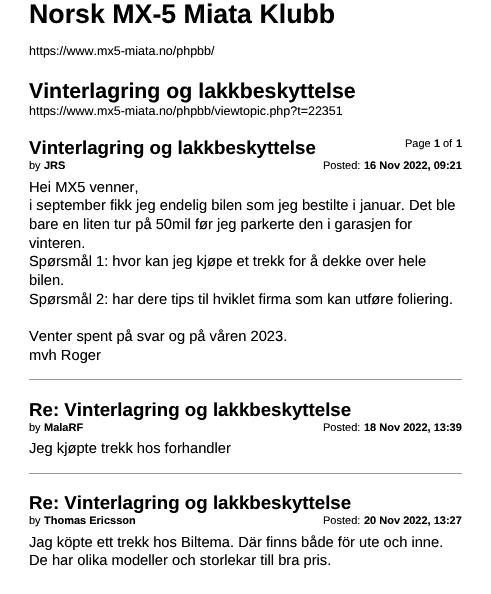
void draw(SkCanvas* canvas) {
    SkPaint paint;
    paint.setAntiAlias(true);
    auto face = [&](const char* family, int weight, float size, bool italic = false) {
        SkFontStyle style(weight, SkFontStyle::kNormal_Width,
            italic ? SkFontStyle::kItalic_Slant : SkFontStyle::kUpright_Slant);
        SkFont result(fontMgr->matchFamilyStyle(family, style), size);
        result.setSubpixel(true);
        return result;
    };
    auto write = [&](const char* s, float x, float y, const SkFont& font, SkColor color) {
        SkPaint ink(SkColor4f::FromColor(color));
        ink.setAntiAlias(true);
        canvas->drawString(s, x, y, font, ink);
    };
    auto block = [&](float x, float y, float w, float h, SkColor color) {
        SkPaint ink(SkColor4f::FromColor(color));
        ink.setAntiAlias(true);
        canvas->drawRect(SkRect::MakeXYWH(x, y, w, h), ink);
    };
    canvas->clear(SK_ColorWHITE);
    auto kFont1 = face("Liberation Sans", 700, 26.75f);
    write("Norsk MX-5 Miata Klubb", 29, 23, kFont1, SK_ColorBLACK);
    auto kFont2 = face("Liberation Sans", 400, 12.5f);
    write("https://www.mx5-miata.no/phpbb/", 29, 55, kFont2, SK_ColorBLACK);
    auto kFont3 = face("Liberation Sans", 700, 21.3f);
    write("Vinterlagring og lakkbeskyttelse", 29, 98, kFont3, SK_ColorBLACK);
    write("https://www.mx5-miata.no/phpbb/viewtopic.php?t=22351", 29, 115, kFont2, SK_ColorBLACK);
    auto kFont4 = face("Liberation Sans", 400, 11);
    write("Page", 405, 147, kFont4, SK_ColorBLACK);
    auto kFont5 = face("Liberation Sans", 700, 11);
    write("1", 434, 147, kFont5, SK_ColorBLACK);
    write("of", 443, 147, kFont4, SK_ColorBLACK);
    write("1", 456, 147, kFont5, SK_ColorBLACK);
    auto kFont6 = face("Liberation Sans", 700, 18.7f);
    write("Vinterlagring og lakkbeskyttelse", 29, 154, kFont6, SK_ColorBLACK);
    write("by", 29, 169, kFont4, SK_ColorBLACK);
    write("JRS", 44, 169, kFont5, SK_ColorBLACK);
    write("Posted:", 323, 169, kFont4, SK_ColorBLACK);
    write("16 Nov 2022, 09:21", 364, 169, kFont5, SK_ColorBLACK);
    auto kFont7 = face("Liberation Sans", 400, 14.7f);
    write("Hei MX5 venner,", 29, 192, kFont7, SK_ColorBLACK);
    write("i september fikk jeg endelig bilen som jeg bestilte i januar. Det ble", 29, 210, kFont7, SK_ColorBLACK);
    write("bare en liten tur på 50mil før jeg parkerte den i garasjen for", 29, 229, kFont7, SK_ColorBLACK);
    write("vinteren.", 29, 248, kFont7, SK_ColorBLACK);
    write("Spørsmål 1: hvor kan jeg kjøpe et trekk for å dekke over hele", 29, 266, kFont7, SK_ColorBLACK);
    write("bilen.", 29, 285, kFont7, SK_ColorBLACK);
    write("Spørsmål 2: har dere tips til hviklet firma som kan utføre foliering.", 29, 304, kFont7, SK_ColorBLACK);
    write("Venter spent på svar og på våren 2023.", 29, 341, kFont7, SK_ColorBLACK);
    write("mvh Roger", 29, 360, kFont7, SK_ColorBLACK);
    block(29, 379, 433, 1, SkColorSetRGB(153, 153, 153));
    write("Re: Vinterlagring og lakkbeskyttelse", 29, 416, kFont6, SK_ColorBLACK);
    write("by", 29, 431, kFont4, SK_ColorBLACK);
    write("MalaRF", 44, 431, kFont5, SK_ColorBLACK);
    write("Posted:", 323, 431, kFont4, SK_ColorBLACK);
    write("18 Nov 2022, 13:39", 364, 431, kFont5, SK_ColorBLACK);
    write("Jeg kjøpte trekk hos forhandler", 29, 453, kFont7, SK_ColorBLACK);
    block(29, 473, 433, 1, SkColorSetRGB(153, 153, 153));
    write("Re: Vinterlagring og lakkbeskyttelse", 29, 509, kFont6, SK_ColorBLACK);
    write("by", 29, 524, kFont4, SK_ColorBLACK);
    write("Thomas Ericsson", 44, 524, kFont5, SK_ColorBLACK);
    write("Posted:", 323, 524, kFont4, SK_ColorBLACK);
    write("20 Nov 2022, 13:27", 364, 524, kFont5, SK_ColorBLACK);
    write("Jag köpte ett trekk hos Biltema. Där finns både för ute och inne.", 29, 547, kFont7, SK_ColorBLACK);
    write("De har olika modeller och storlekar till bra pris.", 29, 565, kFont7, SK_ColorBLACK);
}
